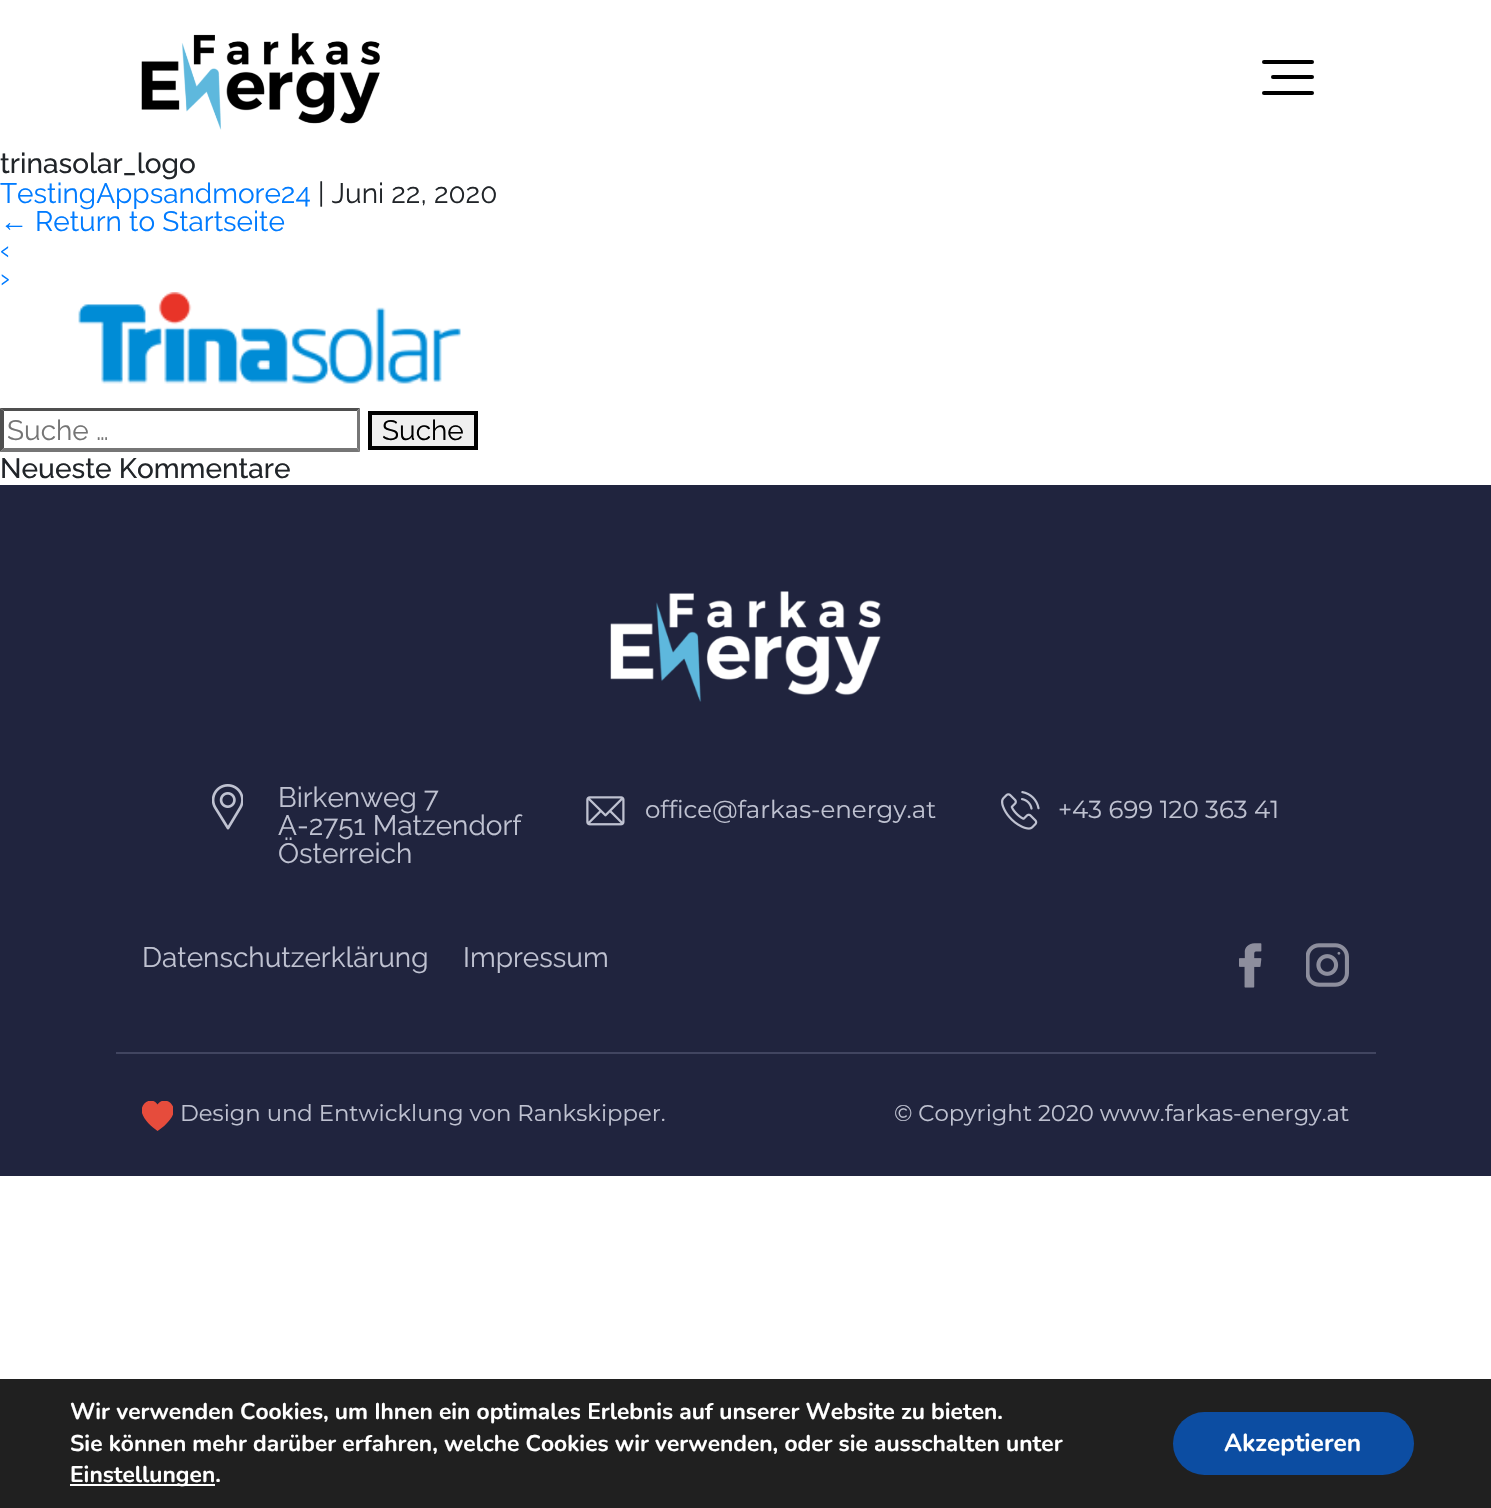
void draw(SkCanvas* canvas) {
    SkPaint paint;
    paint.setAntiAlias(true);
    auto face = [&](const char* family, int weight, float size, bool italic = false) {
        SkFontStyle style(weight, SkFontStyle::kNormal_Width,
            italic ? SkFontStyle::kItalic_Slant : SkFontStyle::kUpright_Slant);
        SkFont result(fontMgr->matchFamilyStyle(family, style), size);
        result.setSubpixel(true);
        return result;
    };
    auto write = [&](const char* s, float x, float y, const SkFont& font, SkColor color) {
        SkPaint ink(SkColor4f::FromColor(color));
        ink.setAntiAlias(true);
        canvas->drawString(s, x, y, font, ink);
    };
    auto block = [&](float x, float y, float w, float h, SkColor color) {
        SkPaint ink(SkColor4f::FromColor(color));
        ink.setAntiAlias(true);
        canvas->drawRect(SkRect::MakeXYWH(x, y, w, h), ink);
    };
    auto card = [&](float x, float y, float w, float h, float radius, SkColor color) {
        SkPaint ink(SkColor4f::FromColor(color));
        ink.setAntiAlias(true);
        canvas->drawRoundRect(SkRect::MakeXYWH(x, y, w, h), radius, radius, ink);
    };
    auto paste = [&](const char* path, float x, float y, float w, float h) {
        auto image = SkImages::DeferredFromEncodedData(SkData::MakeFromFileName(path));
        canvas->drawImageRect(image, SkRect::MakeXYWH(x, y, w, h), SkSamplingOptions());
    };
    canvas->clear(SK_ColorWHITE);
    paste("pic1.png", 141, 33, 239, 97);
    card(1262, 60, 52, 4, 2, SK_ColorBLACK);
    card(1271, 75, 43, 4, 2, SK_ColorBLACK);
    card(1262, 91, 52, 4, 2, SK_ColorBLACK);
    auto kFont1 = face("Raleway", 500, 28);
    write("trinasolar_logo", 0, 173, kFont1, SkColorSetRGB(33, 37, 41));
    auto kFont2 = face("Raleway", 400, 28);
    write("TestingAppsandmore24", 0, 203, kFont2, SkColorSetRGB(0, 123, 255));
    write("| Juni 22, 2020", 318, 203, kFont2, SkColorSetRGB(33, 37, 41));
    auto kFont3 = face("Liberation Sans", 400, 28);
    write("←", 0, 231, kFont3, SkColorSetRGB(0, 123, 255));
    write("Return to Startseite", 35, 231, kFont2, SkColorSetRGB(0, 123, 255));
    write("‹", 0, 259, kFont2, SkColorSetRGB(0, 123, 255));
    write("›", 0, 287, kFont2, SkColorSetRGB(0, 123, 255));
    paste("pic2.png", 78, 292, 383, 92);
    paint.setColor(SkColorSetRGB(79, 79, 79));
    canvas->drawPath(SkPathBuilder().moveTo(0, 408).lineTo(360, 408).lineTo(357, 411).lineTo(4, 411).close().detach(), paint);
    paint.setColor(SkColorSetRGB(118, 118, 118));
    canvas->drawPath(SkPathBuilder().moveTo(360, 408).lineTo(360, 452).lineTo(357, 448).lineTo(357, 411).close().detach(), paint);
    canvas->drawPath(SkPathBuilder().moveTo(360, 452).lineTo(0, 452).lineTo(4, 448).lineTo(357, 448).close().detach(), paint);
    paint.setColor(SkColorSetRGB(79, 79, 79));
    canvas->drawPath(SkPathBuilder().moveTo(0, 452).lineTo(0, 408).lineTo(4, 411).lineTo(4, 448).close().detach(), paint);
    write("Suche …", 7, 440, kFont2, SkColorSetRGB(117, 117, 117));
    paint.setColor(SkColorSetRGB(239, 239, 239));
    canvas->drawRect(SkRect::MakeXYWH(370, 413, 106, 35), paint);
    paint.setStyle(SkPaint::kStroke_Style);
    paint.setStrokeWidth(4);
    paint.setColor(SK_ColorBLACK);
    canvas->drawRect(SkRect::MakeXYWH(370, 413, 106, 35), paint);
    write("Suche", 382, 440, kFont2, SK_ColorBLACK);
    write("Neueste Kommentare", 0, 478, kFont1, SkColorSetRGB(33, 37, 41));
    block(0, 485, 1491, 691, SkColorSetRGB(32, 36, 62));
    paste("pic3.png", 610, 591, 271, 111);
    paste("pic4.png", 212, 784, 31, 46);
    write("Birkenweg 7", 278, 807, kFont2, SkColorSetRGB(191, 194, 209));
    write("A-2751 Matzendorf", 278, 835, kFont2, SkColorSetRGB(191, 194, 209));
    write("Österreich", 278, 863, kFont2, SkColorSetRGB(191, 194, 209));
    paste("pic5.png", 586, 796, 39, 30);
    auto kFont4 = face("Montserrat", 400, 24.5f);
    write("office@farkas-energy.at", 645, 818, kFont4, SkColorSetRGB(191, 194, 209));
    paste("pic6.png", 1001, 791, 39, 39);
    write("+43 699 120 363 41", 1058, 818, kFont4, SkColorSetRGB(191, 194, 209));
    block(116, 1052, 1260, 2, SkColorSetRGB(65, 69, 96));
    write("Datenschutzerklärung", 142, 967, kFont2, SkColorSetRGB(191, 194, 209));
    write("Impressum", 463, 967, kFont2, SkColorSetRGB(191, 194, 209));
    paste("pic7.png", 1239, 943, 23, 45);
    paste("pic8.png", 1306, 943, 43, 44);
    canvas->save();
    canvas->clipRect(SkRect::MakeXYWH(142, 1101, 31, 30));
    paint.setStyle(SkPaint::kFill_Style);
    paint.setColor(SkColorSetRGB(230, 76, 60));
    canvas->drawPath(SkPathBuilder().moveTo(157.5f, 1131).cubicTo(163.5f, 1127, 171.5f, 1120, 173.5f, 1113).cubicTo(176, 1103.5f, 164, 1095.5f, 157.5f, 1104.5f).cubicTo(151.5f, 1095.5f, 139.5f, 1103.5f, 142, 1113).cubicTo(144, 1120, 152, 1127, 157.5f, 1131).close().detach(), paint);
    canvas->restore();
    auto kFont5 = face("Montserrat", 400, 22.75f);
    write("Design und Entwicklung von Rankskipper.", 180, 1121, kFont5, SkColorSetRGB(191, 194, 209));
    write("© Copyright 2020 www.farkas-energy.at", 894, 1121, kFont5, SkColorSetRGB(191, 194, 209));
    block(0, 1379, 1491, 129, SkColorSetRGB(32, 32, 32));
    auto kFont6 = face("Nunito", 700, 22.75f);
    write("Wir verwenden Cookies, um Ihnen ein optimales Erlebnis auf unserer Website zu bieten.", 70, 1419, kFont6, SK_ColorWHITE);
    write("Sie können mehr darüber erfahren, welche Cookies wir verwenden, oder sie ausschalten unter", 70, 1451, kFont6, SK_ColorWHITE);
    block(70, 1484, 145, 2, SK_ColorWHITE);
    write("Einstellungen.", 70, 1482, kFont6, SK_ColorWHITE);
    card(1173, 1412, 241, 63, 31.5f, SkColorSetRGB(12, 77, 162));
    auto kFont7 = face("Nunito", 700, 24.5f);
    write("Akzeptieren", 1224, 1451, kFont7, SK_ColorWHITE);
}
